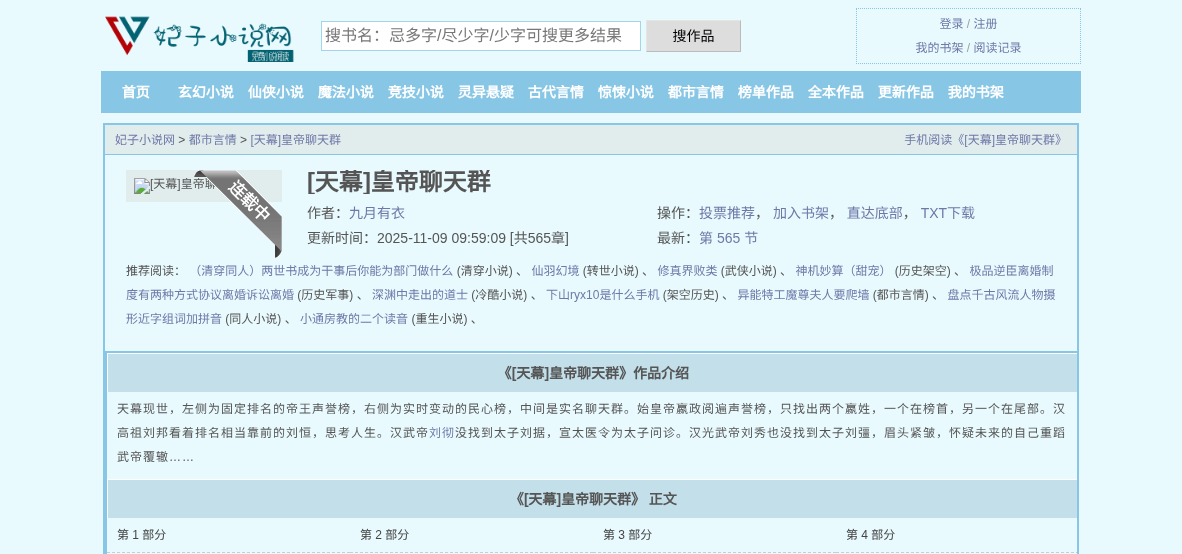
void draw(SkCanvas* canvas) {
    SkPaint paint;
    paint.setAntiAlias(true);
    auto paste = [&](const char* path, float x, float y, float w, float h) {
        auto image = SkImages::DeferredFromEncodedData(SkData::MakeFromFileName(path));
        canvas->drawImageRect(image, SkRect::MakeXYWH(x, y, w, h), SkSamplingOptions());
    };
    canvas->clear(SK_ColorWHITE);
    paste("pic1.png", 0, 0, 1182, 554);
}
